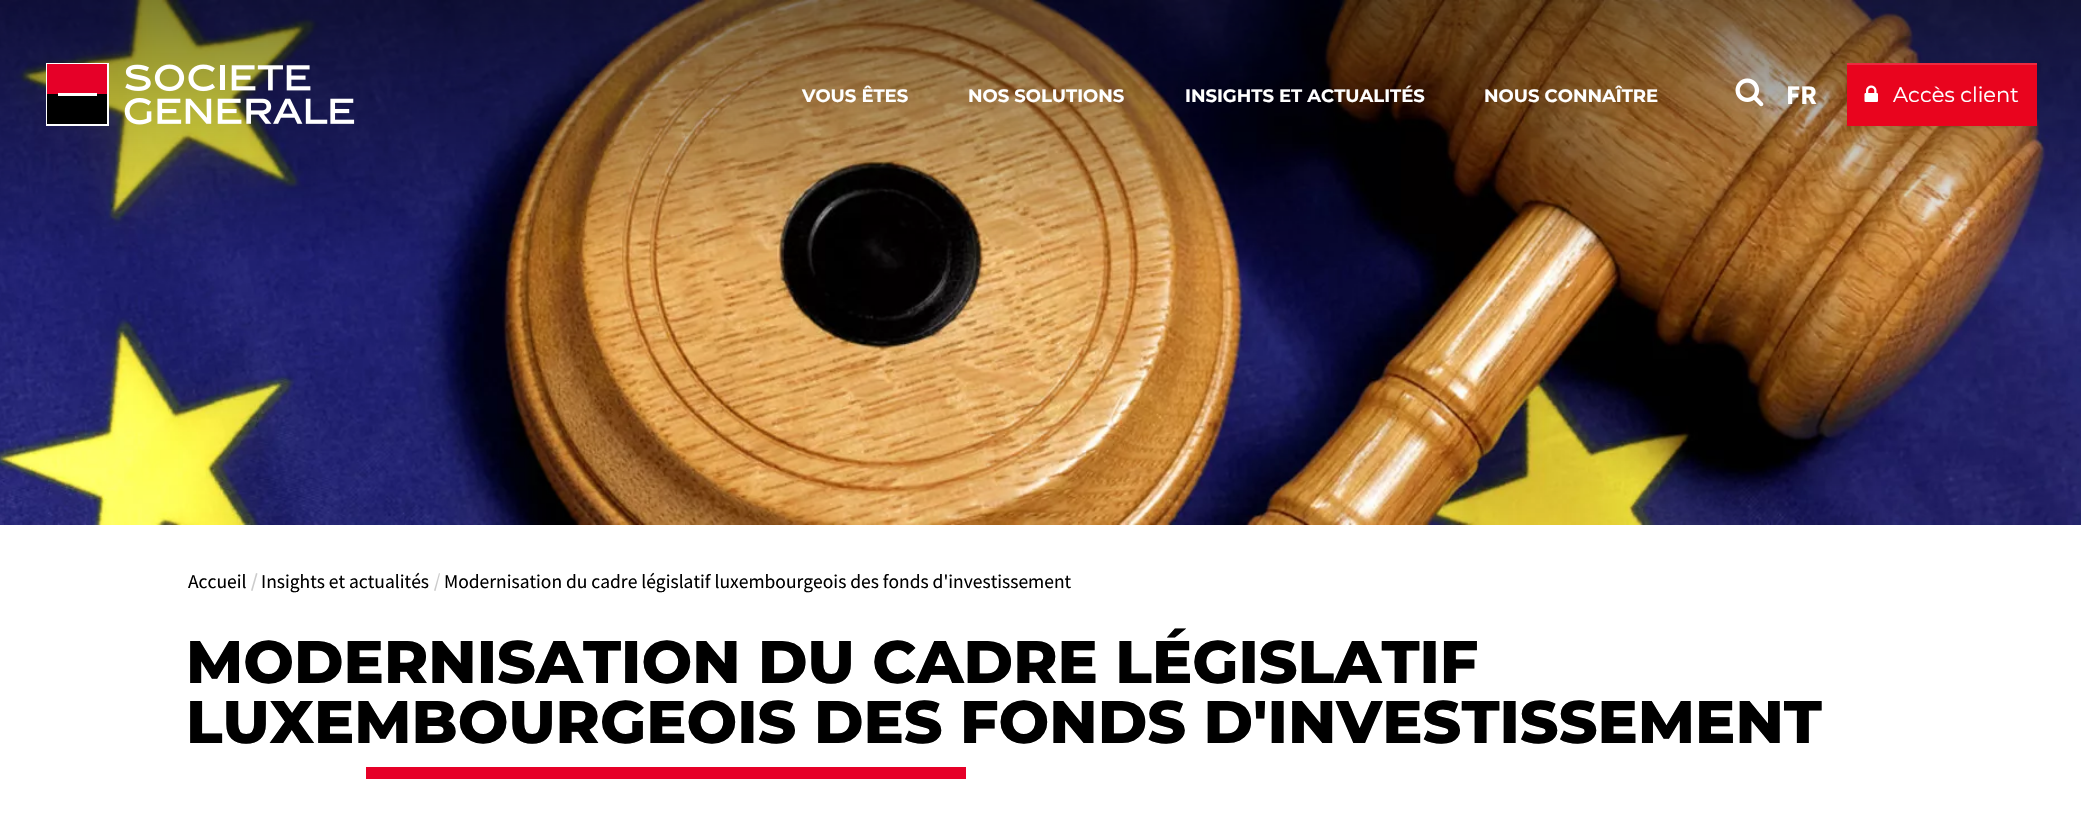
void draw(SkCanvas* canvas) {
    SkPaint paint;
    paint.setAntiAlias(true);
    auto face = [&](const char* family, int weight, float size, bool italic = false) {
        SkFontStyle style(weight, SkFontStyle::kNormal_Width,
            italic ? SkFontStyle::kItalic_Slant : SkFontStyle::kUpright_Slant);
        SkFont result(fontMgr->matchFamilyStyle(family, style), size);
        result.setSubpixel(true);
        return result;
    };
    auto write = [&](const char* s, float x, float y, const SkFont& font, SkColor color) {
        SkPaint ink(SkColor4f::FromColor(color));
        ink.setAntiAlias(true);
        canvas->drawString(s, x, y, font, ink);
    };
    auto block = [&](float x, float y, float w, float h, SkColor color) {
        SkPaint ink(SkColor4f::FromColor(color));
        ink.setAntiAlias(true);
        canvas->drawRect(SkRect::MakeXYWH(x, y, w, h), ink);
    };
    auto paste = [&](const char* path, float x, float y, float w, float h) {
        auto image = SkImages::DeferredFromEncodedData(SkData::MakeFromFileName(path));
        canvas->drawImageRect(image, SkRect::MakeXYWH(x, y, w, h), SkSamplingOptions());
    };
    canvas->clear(SK_ColorWHITE);
    paste("pic4.png", 0, 0, 2081, 525);
    paste("pic1.png", 46, 63, 309, 63);
    auto kFont1 = face("Montserrat", 700, 18);
    write("VOUS ÊTES", 802, 102, kFont1, SK_ColorWHITE);
    write("NOS SOLUTIONS", 968, 102, kFont1, SK_ColorWHITE);
    write("INSIGHTS ET ACTUALITÉS", 1185, 102, kFont1, SK_ColorWHITE);
    write("NOUS CONNAÎTRE", 1484, 102, kFont1, SK_ColorWHITE);
    paste("pic2.png", 1735, 78, 29, 29);
    auto kFont2 = face("Source Sans Pro", 700, 27);
    write("FR", 1786, 104, kFont2, SK_ColorWHITE);
    paint.setColor(SkColorSetARGB(18, 0, 0, 0));
    paint.setMaskFilter(SkMaskFilter::MakeBlur(kNormal_SkBlurStyle, 1));
    canvas->drawRect(SkRect::MakeXYWH(1847, 65, 190, 63), paint);
    paint.setMaskFilter(nullptr);
    block(1847, 65, 190, 61, SkColorSetRGB(233, 4, 30));
    block(1847, 63, 190, 2, SkColorSetRGB(236, 42, 64));
    paste("pic3.png", 1864, 85, 14, 17);
    auto kFont3 = face("Montserrat", 400, 21);
    write("Accès client", 1893, 102, kFont3, SK_ColorWHITE);
    auto kFont4 = face("Source Sans Pro", 400, 19.5f);
    write("Accueil", 188, 588, kFont4, SK_ColorBLACK);
    paint.setColor(SkColorSetRGB(204, 204, 204));
    canvas->drawPath(SkPathBuilder().moveTo(256, 573).lineTo(257.5f, 573.5f).lineTo(252.5f, 591).lineTo(251, 590.5f).close().detach(), paint);
    write("Insights et actualités", 261, 588, kFont4, SK_ColorBLACK);
    canvas->drawPath(SkPathBuilder().moveTo(439, 573).lineTo(440, 573.5f).lineTo(435.5f, 591).lineTo(434, 590.5f).close().detach(), paint);
    write("Modernisation du cadre législatif luxembourgeois des fonds d'investissement", 444, 588, kFont4, SK_ColorBLACK);
    auto kFont5 = face("Montserrat", 800, 60);
    write("MODERNISATION DU CADRE LÉGISLATIF", 186, 683, kFont5, SK_ColorBLACK);
    write("LUXEMBOURGEOIS DES FONDS D'INVESTISSEMENT", 186, 743, kFont5, SK_ColorBLACK);
    block(366, 767, 600, 12, SkColorSetRGB(230, 0, 40));
}
